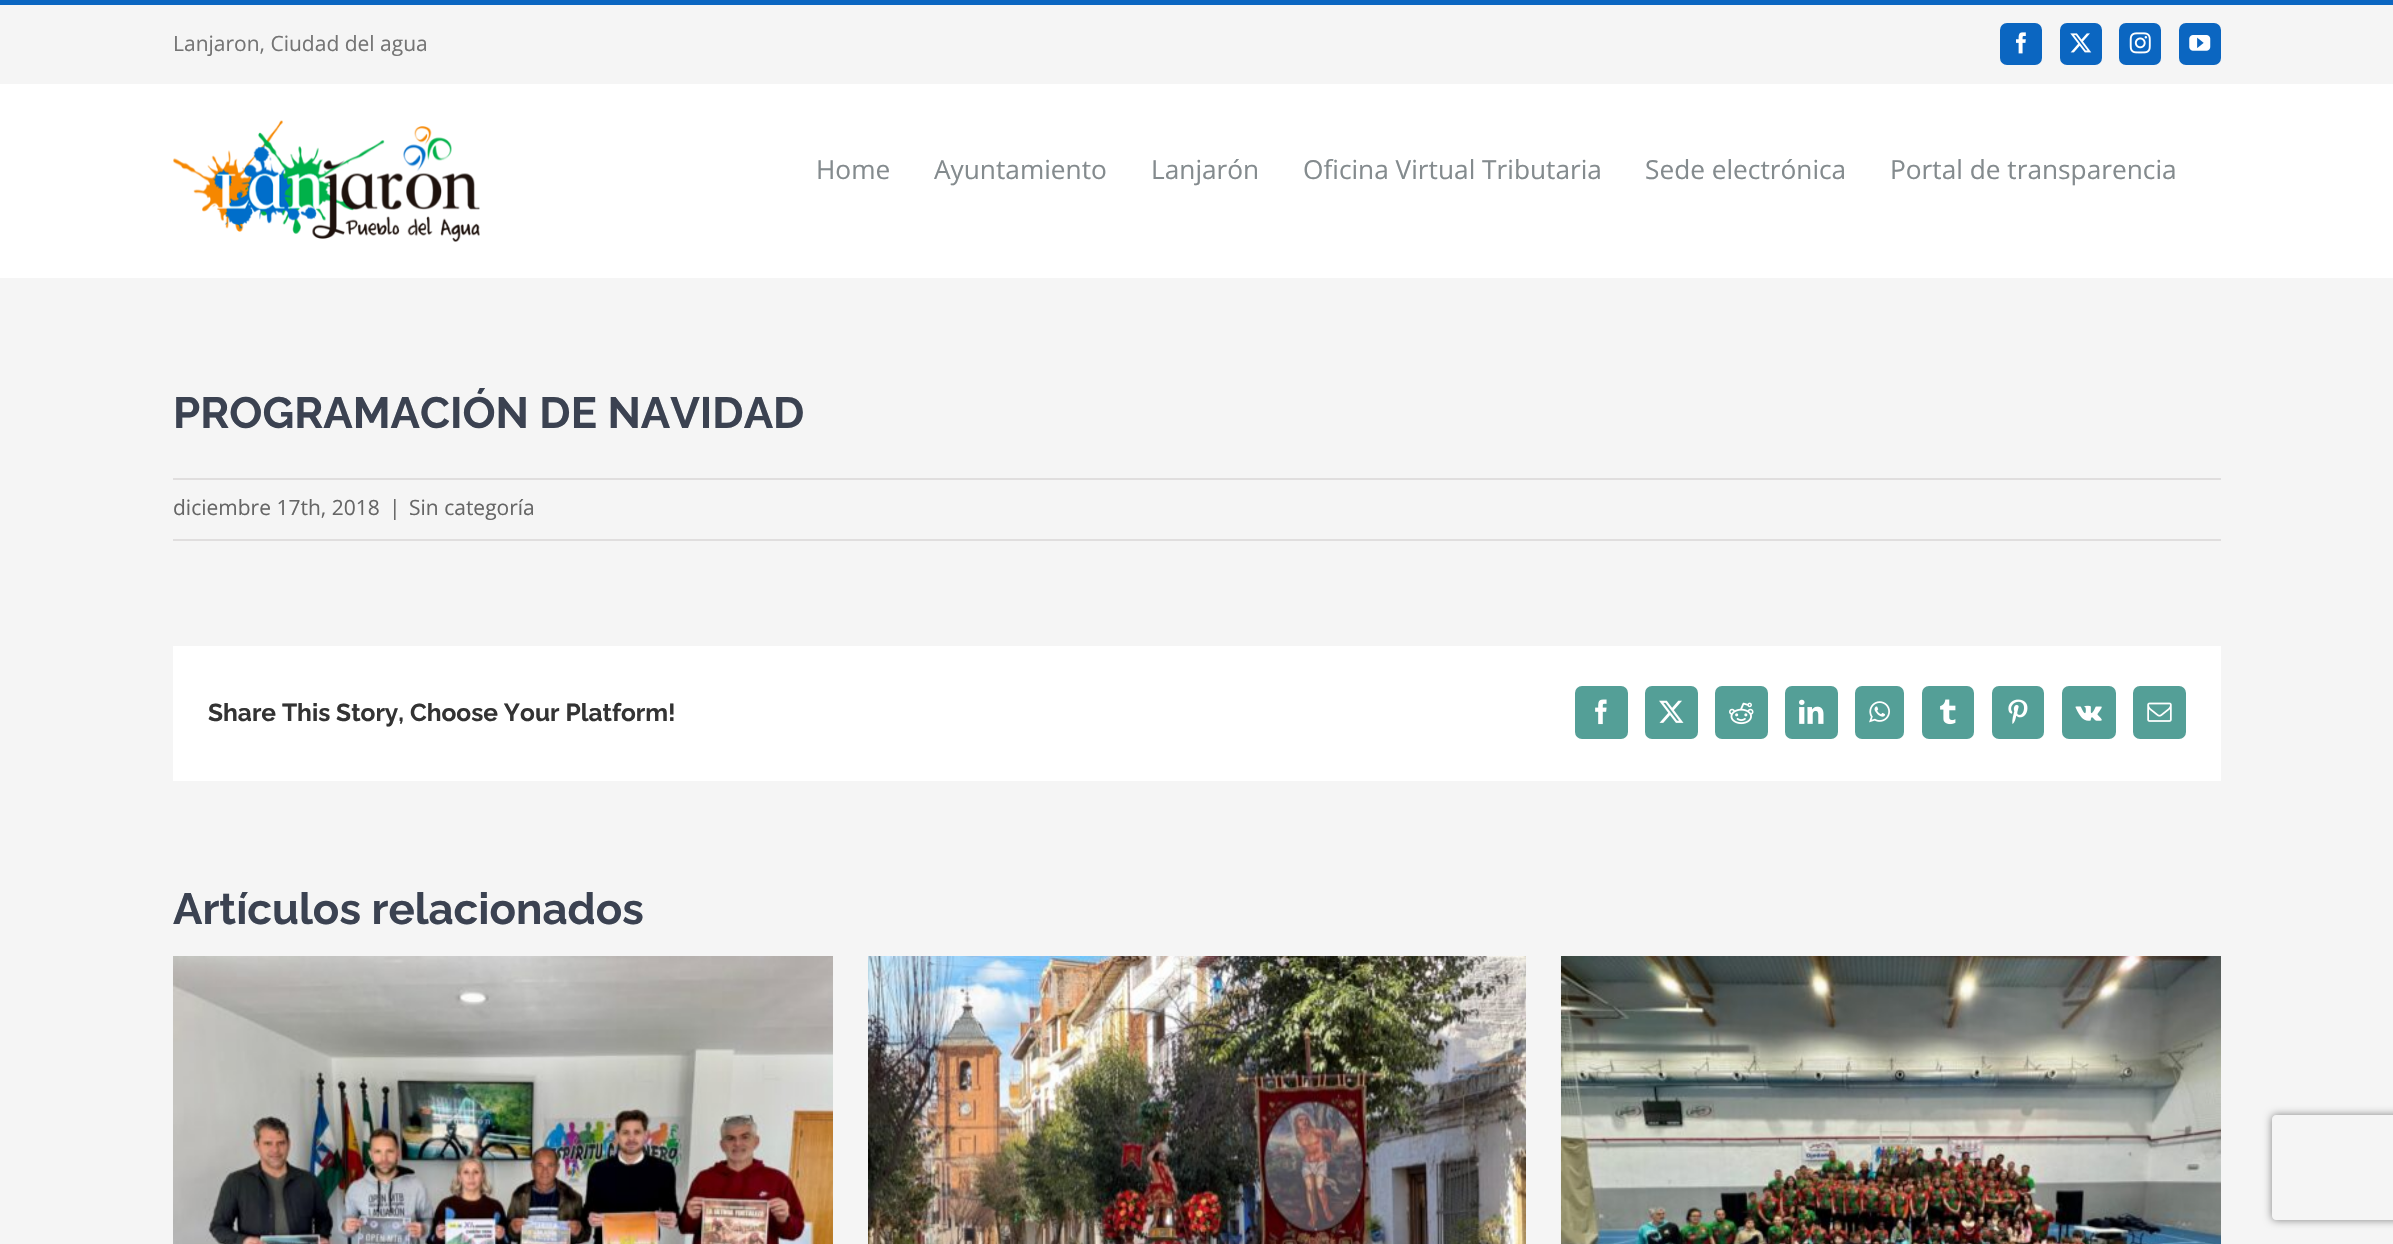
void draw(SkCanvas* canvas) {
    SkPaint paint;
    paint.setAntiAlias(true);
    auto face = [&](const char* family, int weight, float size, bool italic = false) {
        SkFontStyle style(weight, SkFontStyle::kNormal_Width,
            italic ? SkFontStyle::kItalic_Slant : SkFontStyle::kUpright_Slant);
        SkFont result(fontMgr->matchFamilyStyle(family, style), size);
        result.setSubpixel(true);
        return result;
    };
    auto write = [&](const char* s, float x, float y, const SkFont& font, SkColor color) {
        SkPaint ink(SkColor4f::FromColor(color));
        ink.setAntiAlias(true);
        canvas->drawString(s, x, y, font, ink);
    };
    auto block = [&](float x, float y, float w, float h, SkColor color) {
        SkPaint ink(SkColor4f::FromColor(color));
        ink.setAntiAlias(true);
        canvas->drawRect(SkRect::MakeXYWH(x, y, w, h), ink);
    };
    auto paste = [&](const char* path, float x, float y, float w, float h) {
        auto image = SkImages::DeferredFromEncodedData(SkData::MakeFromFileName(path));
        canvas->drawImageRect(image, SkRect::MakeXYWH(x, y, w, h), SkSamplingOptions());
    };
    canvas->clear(SkColorSetRGB(245, 245, 245));
    block(0, 0, 2393, 5, SkColorSetRGB(11, 102, 193));
    auto kFont1 = face("Open Sans", 400, 21);
    write("Lanjaron, Ciudad del agua", 173, 51, kFont1, SkColorSetRGB(116, 116, 116));
    paint.setColor(SkColorSetRGB(11, 102, 193));
    canvas->drawRoundRect(SkRect::MakeXYWH(2001, 24, 40, 40), 6, 6, paint);
    paint.setStyle(SkPaint::kStroke_Style);
    paint.setStrokeWidth(2);
    canvas->drawRoundRect(SkRect::MakeXYWH(2001, 24, 40, 40), 6, 6, paint);
    paste("pic1.png", 2016, 32, 10, 22);
    paint.setStyle(SkPaint::kFill_Style);
    canvas->drawRoundRect(SkRect::MakeXYWH(2061, 24, 40, 40), 6, 6, paint);
    paint.setStyle(SkPaint::kStroke_Style);
    canvas->drawRoundRect(SkRect::MakeXYWH(2061, 24, 40, 40), 6, 6, paint);
    paste("pic2.png", 2070, 33, 22, 20);
    paint.setStyle(SkPaint::kFill_Style);
    canvas->drawRoundRect(SkRect::MakeXYWH(2120, 24, 40, 40), 6, 6, paint);
    paint.setStyle(SkPaint::kStroke_Style);
    canvas->drawRoundRect(SkRect::MakeXYWH(2120, 24, 40, 40), 6, 6, paint);
    paste("pic3.png", 2129, 32, 22, 22);
    paint.setStyle(SkPaint::kFill_Style);
    canvas->drawRoundRect(SkRect::MakeXYWH(2180, 24, 40, 40), 6, 6, paint);
    paint.setStyle(SkPaint::kStroke_Style);
    canvas->drawRoundRect(SkRect::MakeXYWH(2180, 24, 40, 40), 6, 6, paint);
    paste("pic4.png", 2189, 35, 22, 16);
    block(0, 84, 2393, 194, SK_ColorWHITE);
    paste("pic5.png", 173, 120, 307, 122);
    auto kFont2 = face("Open Sans", 400, 26.25f);
    write("Home", 816, 179, kFont2, SkColorSetRGB(132, 139, 142));
    write("Ayuntamiento", 934, 179, kFont2, SkColorSetRGB(132, 139, 142));
    write("Lanjarón", 1151, 179, kFont2, SkColorSetRGB(132, 139, 142));
    write("Oficina Virtual Tributaria", 1303, 179, kFont2, SkColorSetRGB(132, 139, 142));
    write("Sede electrónica", 1645, 179, kFont2, SkColorSetRGB(132, 139, 142));
    write("Portal de transparencia", 1890, 179, kFont2, SkColorSetRGB(132, 139, 142));
    auto kFont3 = face("Raleway", 100, 43.75f);
    write("PROGRAMACIÓN DE NAVIDAD", 173, 428, kFont3, SkColorSetRGB(59, 66, 81));
    block(173, 478, 2048, 2, SkColorSetRGB(224, 222, 222));
    block(173, 539, 2048, 2, SkColorSetRGB(224, 222, 222));
    write("diciembre 17th, 2018", 173, 515, kFont1, SkColorSetRGB(102, 102, 102));
    write("|", 389, 515, kFont1, SkColorSetRGB(102, 102, 102));
    write("Sin categoría", 409, 515, kFont1, SkColorSetRGB(102, 102, 102));
    block(173, 646, 2048, 135, SK_ColorWHITE);
    auto kFont4 = face("Raleway", 100, 24.5f);
    write("Share This Story, Choose Your Platform!", 208, 721, kFont4, SkColorSetRGB(51, 51, 51));
    paint.setStyle(SkPaint::kFill_Style);
    paint.setColor(SkColorSetRGB(84, 159, 151));
    canvas->drawRoundRect(SkRect::MakeXYWH(1576, 687, 51, 51), 6, 6, paint);
    paint.setStyle(SkPaint::kStroke_Style);
    canvas->drawRoundRect(SkRect::MakeXYWH(1576, 687, 51, 51), 6, 6, paint);
    paste("pic6.png", 1595, 699, 12, 26);
    paint.setStyle(SkPaint::kFill_Style);
    canvas->drawRoundRect(SkRect::MakeXYWH(1646, 687, 51, 51), 6, 6, paint);
    paint.setStyle(SkPaint::kStroke_Style);
    canvas->drawRoundRect(SkRect::MakeXYWH(1646, 687, 51, 51), 6, 6, paint);
    paste("pic7.png", 1659, 700, 25, 23);
    paint.setStyle(SkPaint::kFill_Style);
    canvas->drawRoundRect(SkRect::MakeXYWH(1716, 687, 51, 51), 6, 6, paint);
    paint.setStyle(SkPaint::kStroke_Style);
    canvas->drawRoundRect(SkRect::MakeXYWH(1716, 687, 51, 51), 6, 6, paint);
    paste("pic8.png", 1729, 702, 25, 23);
    paint.setStyle(SkPaint::kFill_Style);
    canvas->drawRoundRect(SkRect::MakeXYWH(1786, 687, 51, 51), 6, 6, paint);
    paint.setStyle(SkPaint::kStroke_Style);
    canvas->drawRoundRect(SkRect::MakeXYWH(1786, 687, 51, 51), 6, 6, paint);
    paste("pic9.png", 1799, 699, 25, 25);
    paint.setStyle(SkPaint::kFill_Style);
    canvas->drawRoundRect(SkRect::MakeXYWH(1856, 687, 47, 51), 6, 6, paint);
    paint.setStyle(SkPaint::kStroke_Style);
    canvas->drawRoundRect(SkRect::MakeXYWH(1856, 687, 47, 51), 6, 6, paint);
    paste("pic10.png", 1869, 701, 21, 22);
    paint.setStyle(SkPaint::kFill_Style);
    canvas->drawRoundRect(SkRect::MakeXYWH(1923, 687, 50, 51), 6, 6, paint);
    paint.setStyle(SkPaint::kStroke_Style);
    canvas->drawRoundRect(SkRect::MakeXYWH(1923, 687, 50, 51), 6, 6, paint);
    paste("pic11.png", 1940, 699, 16, 26);
    paint.setStyle(SkPaint::kFill_Style);
    canvas->drawRoundRect(SkRect::MakeXYWH(1993, 687, 50, 51), 6, 6, paint);
    paint.setStyle(SkPaint::kStroke_Style);
    canvas->drawRoundRect(SkRect::MakeXYWH(1993, 687, 50, 51), 6, 6, paint);
    paste("pic12.png", 2008, 699, 20, 25);
    paint.setStyle(SkPaint::kFill_Style);
    canvas->drawRoundRect(SkRect::MakeXYWH(2063, 687, 52, 51), 6, 6, paint);
    paint.setStyle(SkPaint::kStroke_Style);
    canvas->drawRoundRect(SkRect::MakeXYWH(2063, 687, 52, 51), 6, 6, paint);
    paste("pic13.png", 2075, 705, 27, 16);
    paint.setStyle(SkPaint::kFill_Style);
    canvas->drawRoundRect(SkRect::MakeXYWH(2134, 687, 51, 51), 6, 6, paint);
    paint.setStyle(SkPaint::kStroke_Style);
    canvas->drawRoundRect(SkRect::MakeXYWH(2134, 687, 51, 51), 6, 6, paint);
    paste("pic14.png", 2147, 702, 25, 20);
    write("Artículos relacionados", 173, 924, kFont3, SkColorSetRGB(59, 66, 81));
    paste("pic15.png", 173, 956, 660, 288);
    paste("pic16.png", 868, 956, 658, 288);
    paste("pic17.png", 1561, 956, 660, 288);
    canvas->save();
    canvas->clipPath(SkPathBuilder(SkPathFillType::kEvenOdd).moveTo(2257, 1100).lineTo(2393, 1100).lineTo(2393, 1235).lineTo(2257, 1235).close().moveTo(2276, 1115).lineTo(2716, 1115).cubicTo(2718, 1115, 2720, 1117, 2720, 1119).lineTo(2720, 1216).cubicTo(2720, 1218, 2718, 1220, 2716, 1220).lineTo(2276, 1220).cubicTo(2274, 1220, 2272, 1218, 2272, 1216).lineTo(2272, 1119).cubicTo(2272, 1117, 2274, 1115, 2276, 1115).close().detach(), true);
    paint.setStyle(SkPaint::kFill_Style);
    paint.setColor(SkColorSetRGB(128, 128, 128));
    paint.setMaskFilter(SkMaskFilter::MakeBlur(kNormal_SkBlurStyle, 4.5f));
    canvas->drawRoundRect(SkRect::MakeXYWH(2272, 1115, 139, 105), 4, 4, paint);
    paint.setMaskFilter(nullptr);
    canvas->restore();
}
